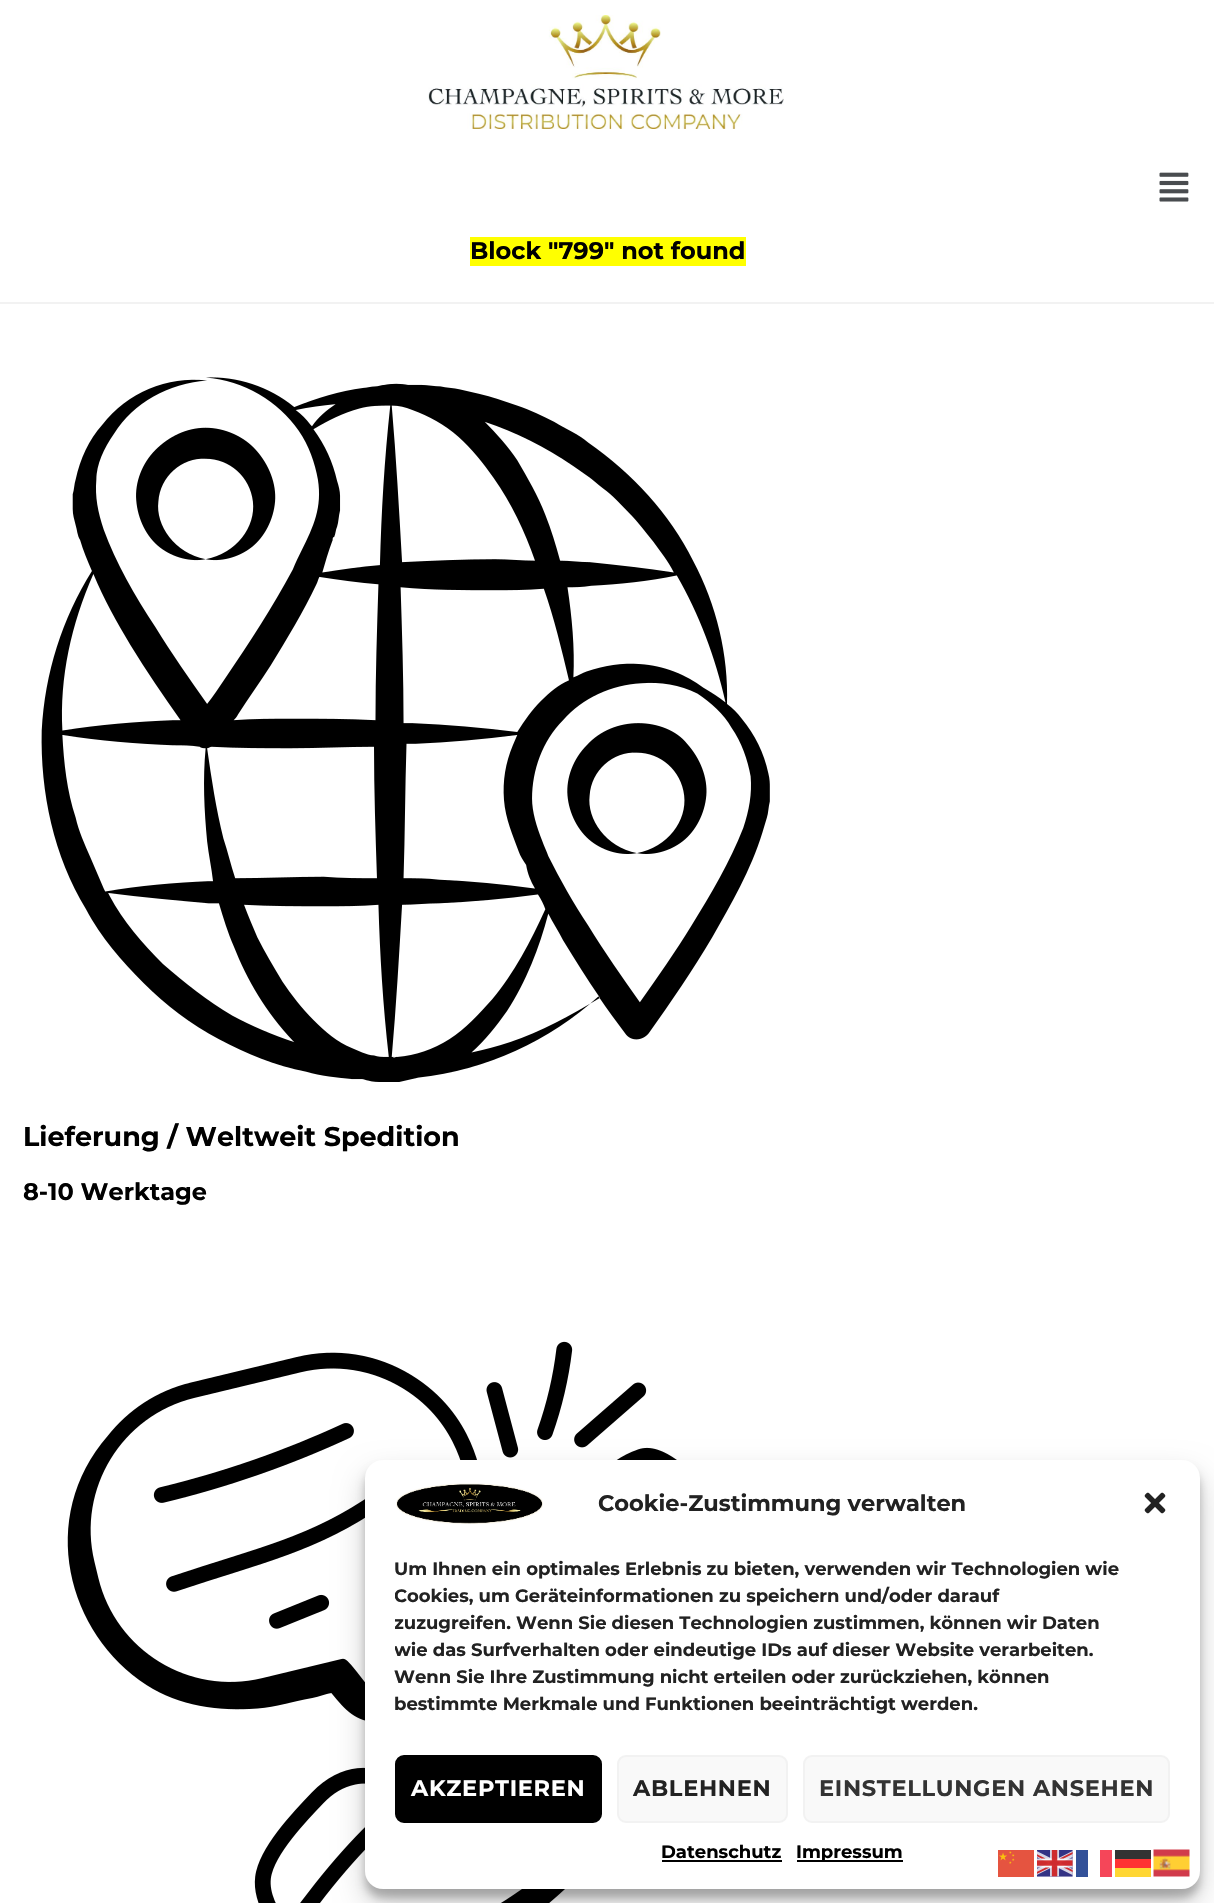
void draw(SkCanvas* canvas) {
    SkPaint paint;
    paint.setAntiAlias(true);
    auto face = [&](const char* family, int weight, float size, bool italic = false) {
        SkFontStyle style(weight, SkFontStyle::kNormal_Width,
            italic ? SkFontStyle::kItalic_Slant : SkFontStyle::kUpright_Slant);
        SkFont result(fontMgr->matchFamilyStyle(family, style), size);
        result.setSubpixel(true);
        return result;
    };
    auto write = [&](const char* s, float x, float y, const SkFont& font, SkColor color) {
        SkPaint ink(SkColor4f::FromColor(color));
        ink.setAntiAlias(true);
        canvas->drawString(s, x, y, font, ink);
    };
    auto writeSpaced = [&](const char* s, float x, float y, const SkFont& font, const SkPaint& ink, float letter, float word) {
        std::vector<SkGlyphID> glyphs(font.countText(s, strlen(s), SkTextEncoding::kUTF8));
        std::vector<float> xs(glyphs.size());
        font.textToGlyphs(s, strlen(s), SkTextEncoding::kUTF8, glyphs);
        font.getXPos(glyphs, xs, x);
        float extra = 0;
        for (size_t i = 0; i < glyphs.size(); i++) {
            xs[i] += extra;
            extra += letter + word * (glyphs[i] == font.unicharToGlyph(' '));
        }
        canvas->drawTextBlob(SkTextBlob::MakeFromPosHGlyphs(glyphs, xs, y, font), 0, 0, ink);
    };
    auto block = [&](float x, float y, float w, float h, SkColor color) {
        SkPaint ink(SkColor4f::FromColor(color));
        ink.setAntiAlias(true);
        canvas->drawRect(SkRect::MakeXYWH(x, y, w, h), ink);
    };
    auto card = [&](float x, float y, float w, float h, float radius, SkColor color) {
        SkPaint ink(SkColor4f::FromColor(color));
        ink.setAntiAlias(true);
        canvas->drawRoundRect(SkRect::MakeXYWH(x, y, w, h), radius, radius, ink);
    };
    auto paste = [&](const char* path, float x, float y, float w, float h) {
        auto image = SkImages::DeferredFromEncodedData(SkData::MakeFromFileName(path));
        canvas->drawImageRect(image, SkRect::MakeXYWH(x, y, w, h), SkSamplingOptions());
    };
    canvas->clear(SK_ColorWHITE);
    paste("pic1.png", 428, 15, 356, 114);
    paste("pic2.png", 1159, 172, 30, 30);
    block(470, 237, 276, 29, SkColorSetRGB(255, 255, 0));
    auto kFont1 = face("Montserrat", 700, 24);
    write("Block \"799\" not found", 470, 259, kFont1, SK_ColorBLACK);
    block(0, 302, 1214, 2, SkColorSetRGB(242, 242, 242));
    paste("pic3.png", 41, 377, 729, 705);
    auto kFont2 = face("Montserrat", 700, 27);
    write("Lieferung / Weltweit Spedition", 23, 1146, kFont2, SK_ColorBLACK);
    write("8-10 Werktage", 23, 1200, kFont1, SK_ColorBLACK);
    paste("pic4.png", 67, 1341, 610, 562);
    paint.setColor(SkColorSetARGB(59, 0, 0, 0));
    paint.setMaskFilter(SkMaskFilter::MakeBlur(kNormal_SkBlurStyle, 4.5f));
    canvas->drawRoundRect(SkRect::MakeXYWH(365, 1469, 835, 429), 18, 18, paint);
    paint.setMaskFilter(nullptr);
    paint.setColor(SkColorSetARGB(48, 0, 0, 0));
    paint.setMaskFilter(SkMaskFilter::MakeBlur(kNormal_SkBlurStyle, 15));
    canvas->drawRoundRect(SkRect::MakeXYWH(365, 1475, 835, 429), 18, 18, paint);
    paint.setMaskFilter(nullptr);
    card(365, 1460, 835, 429, 18, SK_ColorWHITE);
    paste("pic5.png", 396, 1483, 147, 41);
    auto kFont3 = face("Montserrat", 700, 22.5f);
    write("Cookie-Zustimmung verwalten", 598, 1511, kFont3, SkColorSetRGB(34, 34, 34));
    paste("pic6.png", 1144, 1492, 22, 22);
    auto kFont4 = face("Montserrat", 700, 18);
    write("Um Ihnen ein optimales Erlebnis zu bieten, verwenden wir Technologien wie", 394, 1575, kFont4, SkColorSetRGB(34, 34, 34));
    canvas->save();
    canvas->clipRect(SkRect::MakeXYWH(395, 1556, 775, 169));
    write("Cookies, um Geräteinformationen zu speichern und/oder darauf", 394, 1602, kFont4, SkColorSetRGB(34, 34, 34));
    write("zuzugreifen. Wenn Sie diesen Technologien zustimmen, können wir Daten", 394, 1629, kFont4, SkColorSetRGB(34, 34, 34));
    write("wie das Surfverhalten oder eindeutige IDs auf dieser Website verarbeiten.", 394, 1656, kFont4, SkColorSetRGB(34, 34, 34));
    canvas->restore();
    write("Wenn Sie Ihre Zustimmung nicht erteilen oder zurückziehen, können", 394, 1683, kFont4, SkColorSetRGB(34, 34, 34));
    write("bestimmte Merkmale und Funktionen beeinträchtigt werden.", 394, 1710, kFont4, SkColorSetRGB(34, 34, 34));
    paint.setColor(SK_ColorBLACK);
    canvas->drawRoundRect(SkRect::MakeXYWH(396, 1756, 205, 66), 8, 8, paint);
    paint.setStyle(SkPaint::kStroke_Style);
    paint.setStrokeWidth(2);
    canvas->drawRoundRect(SkRect::MakeXYWH(396, 1756, 205, 66), 8, 8, paint);
    paint.setStyle(SkPaint::kFill_Style);
    paint.setColor(SK_ColorWHITE);
    writeSpaced("AKZEPTIEREN", 411, 1796, kFont3, paint, 0.7f, 0);
    paint.setColor(SkColorSetRGB(249, 249, 249));
    canvas->drawRoundRect(SkRect::MakeXYWH(618, 1756, 169, 66), 8, 8, paint);
    paint.setStyle(SkPaint::kStroke_Style);
    paint.setColor(SkColorSetRGB(242, 242, 242));
    canvas->drawRoundRect(SkRect::MakeXYWH(618, 1756, 169, 66), 8, 8, paint);
    paint.setStyle(SkPaint::kFill_Style);
    paint.setColor(SkColorSetRGB(34, 34, 34));
    writeSpaced("ABLEHNEN", 633, 1796, kFont3, paint, 0.7f, 0);
    paint.setColor(SkColorSetRGB(249, 249, 249));
    canvas->drawRoundRect(SkRect::MakeXYWH(804, 1756, 365, 66), 8, 8, paint);
    paint.setStyle(SkPaint::kStroke_Style);
    paint.setColor(SkColorSetRGB(242, 242, 242));
    canvas->drawRoundRect(SkRect::MakeXYWH(804, 1756, 365, 66), 8, 8, paint);
    paint.setStyle(SkPaint::kFill_Style);
    paint.setColor(SkColorSetRGB(51, 51, 51));
    writeSpaced("EINSTELLUNGEN ANSEHEN", 819, 1796, kFont3, paint, 0.7f, 0);
    write("Datenschutz", 661, 1858, kFont4, SK_ColorBLACK);
    block(662, 1860, 120, 2, SK_ColorBLACK);
    block(797, 1860, 106, 2, SK_ColorBLACK);
    write("Impressum", 796, 1858, kFont4, SK_ColorBLACK);
    paste("pic7.png", 998, 1850, 36, 27);
    paste("pic8.png", 1037, 1850, 36, 27);
    block(1076, 1850, 12, 27, SkColorSetRGB(51, 81, 153));
    block(1100, 1850, 12, 27, SkColorSetRGB(245, 70, 89));
    block(1115, 1850, 36, 9, SkColorSetRGB(51, 51, 51));
    paste("pic9.png", 1153, 1849, 37, 28);
    block(1115, 1859, 36, 9, SkColorSetRGB(255, 51, 51));
    block(1115, 1868, 36, 9, SkColorSetRGB(255, 214, 51));
}
